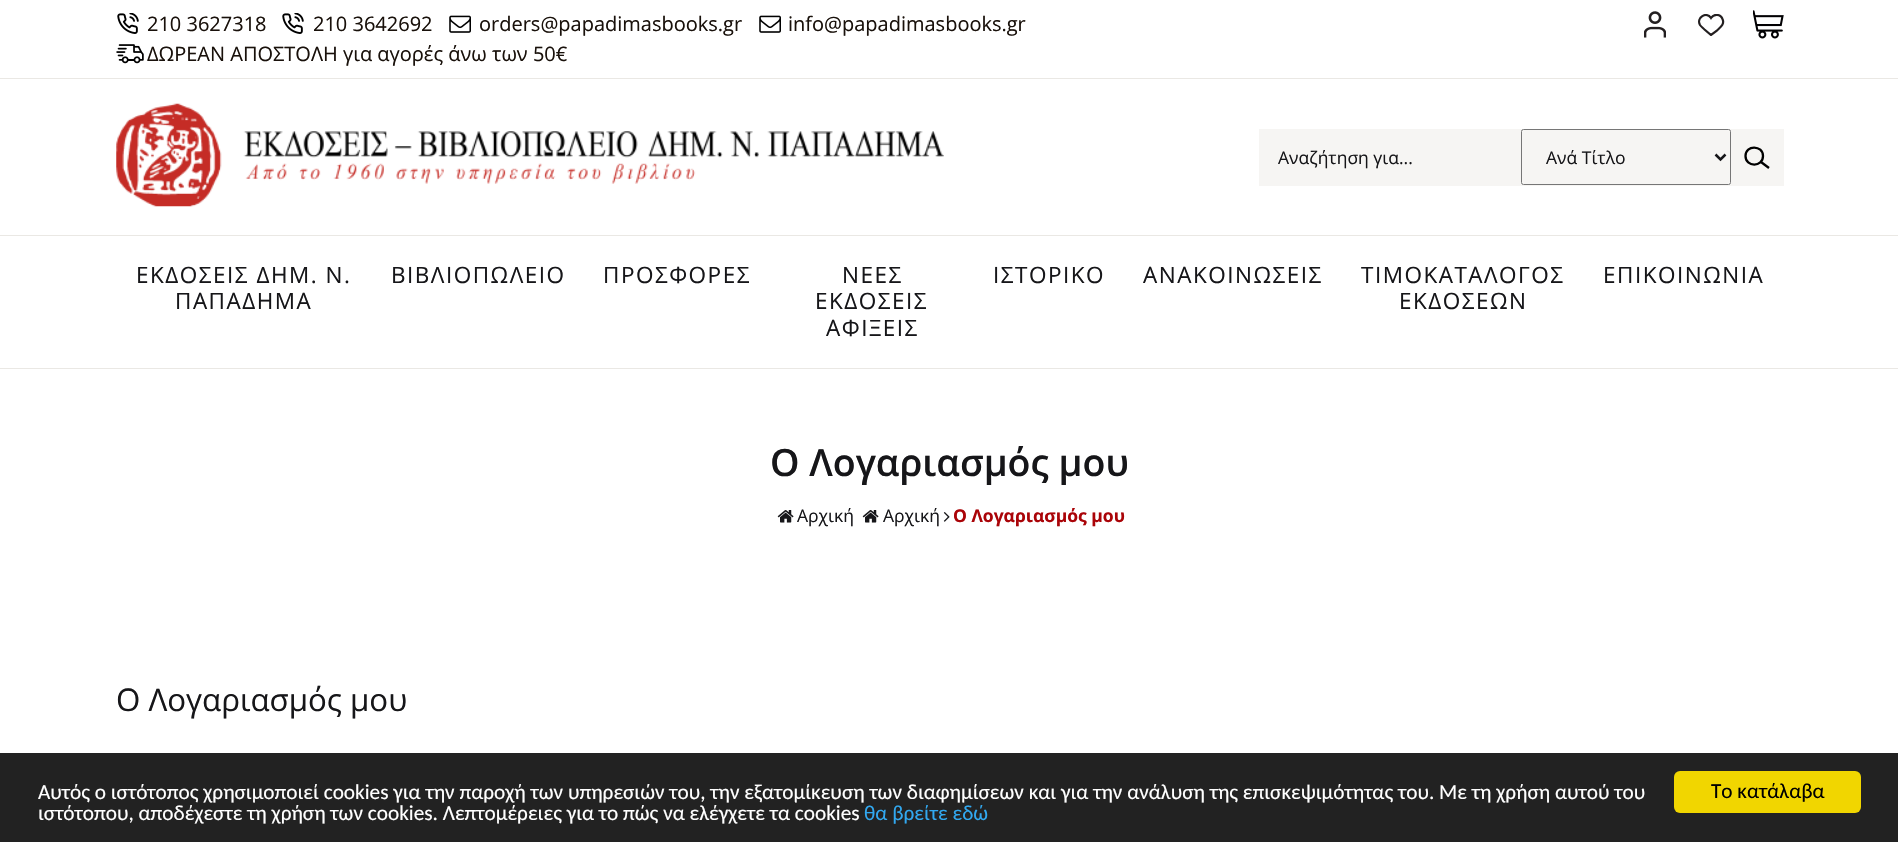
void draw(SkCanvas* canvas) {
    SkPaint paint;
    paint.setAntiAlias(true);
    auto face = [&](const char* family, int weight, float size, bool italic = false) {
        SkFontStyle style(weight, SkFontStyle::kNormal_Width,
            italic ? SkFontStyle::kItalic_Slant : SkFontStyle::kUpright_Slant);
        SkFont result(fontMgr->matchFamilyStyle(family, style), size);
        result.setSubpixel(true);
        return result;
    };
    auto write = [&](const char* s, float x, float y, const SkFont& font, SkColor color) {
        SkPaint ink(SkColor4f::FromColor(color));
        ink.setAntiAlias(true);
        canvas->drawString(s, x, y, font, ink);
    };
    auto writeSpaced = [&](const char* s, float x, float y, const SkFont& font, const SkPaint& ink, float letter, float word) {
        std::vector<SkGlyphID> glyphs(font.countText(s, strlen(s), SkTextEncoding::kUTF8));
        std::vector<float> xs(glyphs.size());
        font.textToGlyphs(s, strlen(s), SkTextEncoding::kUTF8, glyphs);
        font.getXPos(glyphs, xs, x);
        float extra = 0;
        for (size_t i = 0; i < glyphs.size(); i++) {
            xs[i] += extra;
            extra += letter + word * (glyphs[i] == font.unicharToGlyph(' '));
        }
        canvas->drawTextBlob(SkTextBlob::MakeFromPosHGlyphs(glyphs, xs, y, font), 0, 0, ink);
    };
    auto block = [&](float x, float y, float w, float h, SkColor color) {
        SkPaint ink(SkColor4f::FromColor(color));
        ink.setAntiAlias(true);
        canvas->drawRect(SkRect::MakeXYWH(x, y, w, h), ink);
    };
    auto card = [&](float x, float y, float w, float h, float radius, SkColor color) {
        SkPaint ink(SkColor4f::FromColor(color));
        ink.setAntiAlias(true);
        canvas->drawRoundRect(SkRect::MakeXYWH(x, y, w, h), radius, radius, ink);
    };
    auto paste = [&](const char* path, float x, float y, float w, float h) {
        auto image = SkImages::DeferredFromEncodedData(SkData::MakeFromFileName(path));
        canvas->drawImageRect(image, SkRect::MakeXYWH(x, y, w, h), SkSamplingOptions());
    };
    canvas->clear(SK_ColorWHITE);
    block(0, 78, 1898, 1, SkColorSetRGB(234, 232, 228));
    paste("pic1.png", 117, 13, 22, 21);
    auto kFont1 = face("Open Sans", 400, 20);
    write("210 3627318", 147, 31, kFont1, SkColorSetRGB(25, 17, 11));
    paste("pic1.png", 282, 13, 22, 21);
    write("210 3642692", 313, 31, kFont1, SkColorSetRGB(25, 17, 11));
    paste("pic2.png", 449, 15, 22, 18);
    write("orders@papadimasbooks.gr", 479, 31, kFont1, SkColorSetRGB(25, 17, 11));
    paste("pic2.png", 759, 15, 22, 18);
    write("info@papadimasbooks.gr", 788, 31, kFont1, SkColorSetRGB(25, 17, 11));
    paste("pic3.png", 116, 44, 28, 20);
    write("ΔΩΡΕΑΝ ΑΠΟΣΤΟΛΗ για αγορές άνω των 50€", 147, 61, kFont1, SkColorSetRGB(25, 17, 11));
    paste("pic4.png", 1644, 11, 22, 27);
    canvas->save();
    canvas->clipRect(SkRect::MakeXYWH(1698, 14, 27, 22));
    paint.setStyle(SkPaint::kStroke_Style);
    paint.setStrokeWidth(2.2f);
    paint.setColor(SkColorSetRGB(35, 31, 32));
    canvas->drawPath(SkPathBuilder().moveTo(1722.5f, 19).cubicTo(1720.5f, 14, 1714, 13.5f, 1711, 18).cubicTo(1706.5f, 11, 1696, 17.5f, 1700, 25).cubicTo(1701, 26.5f, 1703, 28, 1704.5f, 29.5f).lineTo(1711, 35).lineTo(1716.5f, 31).cubicTo(1720, 27.5f, 1725, 24.5f, 1722.5f, 19).close().detach(), paint);
    canvas->restore();
    paste("pic5.png", 1753, 10, 31, 29);
    paste("pic6.png", 116, 103, 828, 104);
    block(1259, 129, 525, 57, SkColorSetRGB(246, 245, 243));
    auto kFont2 = face("Open Sans", 400, 17.5f);
    write("Αναζήτηση για...", 1278, 164, kFont2, SkColorSetRGB(22, 22, 25));
    paint.setStrokeWidth(1);
    paint.setColor(SkColorSetRGB(118, 118, 118));
    canvas->drawRoundRect(SkRect::MakeXYWH(1521.5f, 129.5f, 209, 55), 2, 2, paint);
    paint.setStrokeWidth(2.5f);
    paint.setColor(SkColorSetRGB(22, 22, 25));
    canvas->drawPath(SkPathBuilder().moveTo(1715.5f, 154.5f).lineTo(1720.5f, 159.5f).lineTo(1725.5f, 154.5f).detach(), paint);
    write("Ανά Τίτλο", 1546, 164, kFont2, SkColorSetRGB(22, 22, 25));
    paint.setStrokeWidth(2.3f);
    paint.setColor(SK_ColorBLACK);
    canvas->drawPath(SkPathBuilder().moveTo(1763, 156).cubicTo(1763, 167.5f, 1745.5f, 167.5f, 1745.5f, 156).cubicTo(1745.5f, 144.5f, 1763, 145, 1763, 156).close().moveTo(1761, 162).lineTo(1769, 168).detach(), paint);
    block(0, 235, 1898, 1, SkColorSetRGB(234, 232, 228));
    block(0, 368, 1898, 1, SkColorSetRGB(234, 232, 228));
    auto kFont3 = face("Open Sans", 400, 22.5f);
    paint.setStyle(SkPaint::kFill_Style);
    paint.setColor(SkColorSetRGB(22, 22, 25));
    writeSpaced("ΕΚΔΟΣΕΙΣ ΔHM. Ν.", 136, 283, kFont3, paint, 1.5f, 0);
    writeSpaced("ΠΑΠΑΔΗΜΑ", 175, 309, kFont3, paint, 1.5f, 0);
    writeSpaced("ΒΙΒΛΙΟΠΩΛΕΙΟ", 391, 283, kFont3, paint, 1.5f, 0);
    writeSpaced("ΠΡΟΣΦΟΡΕΣ", 603, 283, kFont3, paint, 1.5f, 0);
    writeSpaced("ΝΕΕΣ", 842, 283, kFont3, paint, 1.5f, 0);
    writeSpaced("ΕΚΔΟΣΕΙΣ", 815, 309, kFont3, paint, 1.5f, 0);
    writeSpaced("ΑΦΙΞΕΙΣ", 826, 336, kFont3, paint, 1.5f, 0);
    writeSpaced("ΙΣΤΟΡΙΚΟ", 993, 283, kFont3, paint, 1.5f, 0);
    writeSpaced("ΑΝΑΚΟΙΝΩΣΕΙΣ", 1143, 283, kFont3, paint, 1.5f, 0);
    writeSpaced("ΤΙΜΟΚΑΤΑΛΟΓΟΣ", 1361, 283, kFont3, paint, 1.5f, 0);
    writeSpaced("ΕΚΔΟΣΕΩΝ", 1399, 309, kFont3, paint, 1.5f, 0);
    writeSpaced("ΕΠΙΚΟΙΝΩΝΙΑ", 1603, 283, kFont3, paint, 1.5f, 0);
    auto kFont4 = face("Open Sans", 600, 37.5f);
    write("Ο Λογαριασμός μου", 770, 476, kFont4, SkColorSetRGB(22, 22, 25));
    paste("pic7.png", 777, 510, 17, 13);
    write("Αρχική", 797, 522, kFont2, SkColorSetRGB(22, 22, 25));
    paste("pic7.png", 862, 510, 17, 13);
    write("Αρχική", 883, 522, kFont2, SkColorSetRGB(22, 22, 25));
    paste("pic8.png", 943, 512, 7, 10);
    auto kFont5 = face("Open Sans", 700, 17.5f);
    write("Ο Λογαριασμός μου", 953, 522, kFont5, SkColorSetRGB(170, 4, 8));
    auto kFont6 = face("Open Sans", 400, 31.25f);
    write("Ο Λογαριασμός μου", 116, 711, kFont6, SkColorSetRGB(22, 22, 25));
    block(0, 753, 1898, 89, SkColorSetRGB(34, 34, 34));
    auto kFont7 = face("Carlito", 400, 21.25f);
    write("Αυτός ο ιστότοπος χρησιμοποιεί cookies για την παροχή των υπηρεσιών του, την εξατομίκευση των διαφημίσεων και για την ανάλυση της επισκεψιμότητας του. Με τη χρήση αυτού του", 38, 799, kFont7, SK_ColorWHITE);
    write("ιστότοπου, αποδέχεστε τη χρήση των cookies. Λεπτομέρειες για το πώς να ελέγχετε τα cookies", 38, 820, kFont7, SK_ColorWHITE);
    write("θα βρείτε εδώ", 864, 820, kFont7, SkColorSetRGB(49, 168, 240));
    card(1674, 771, 187, 42, 6, SkColorSetRGB(241, 214, 0));
    write("Το κατάλαβα", 1711, 798, kFont7, SK_ColorBLACK);
}
